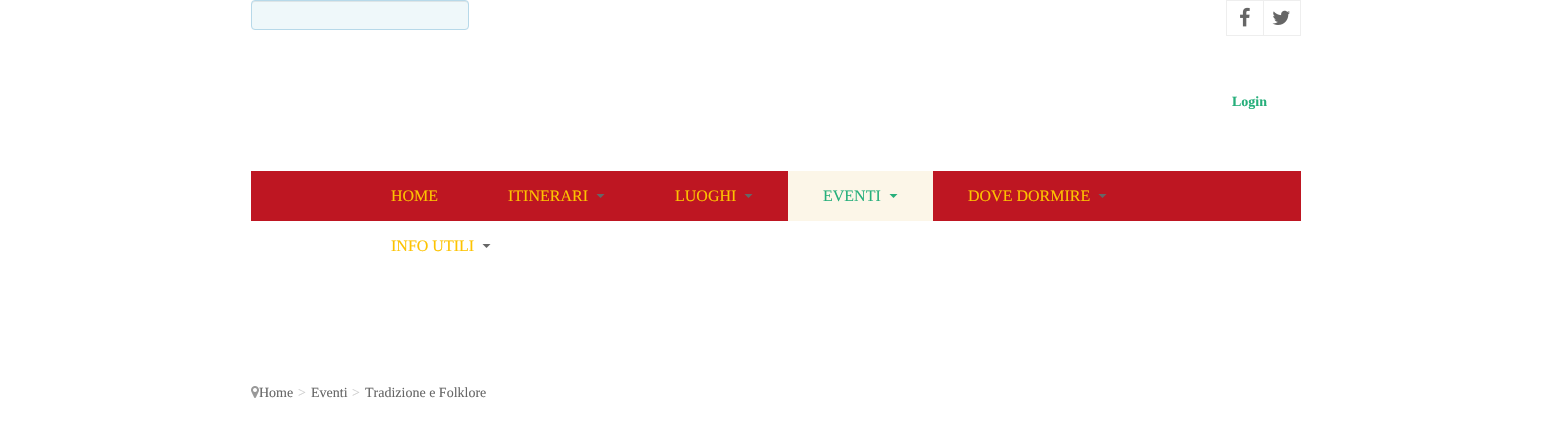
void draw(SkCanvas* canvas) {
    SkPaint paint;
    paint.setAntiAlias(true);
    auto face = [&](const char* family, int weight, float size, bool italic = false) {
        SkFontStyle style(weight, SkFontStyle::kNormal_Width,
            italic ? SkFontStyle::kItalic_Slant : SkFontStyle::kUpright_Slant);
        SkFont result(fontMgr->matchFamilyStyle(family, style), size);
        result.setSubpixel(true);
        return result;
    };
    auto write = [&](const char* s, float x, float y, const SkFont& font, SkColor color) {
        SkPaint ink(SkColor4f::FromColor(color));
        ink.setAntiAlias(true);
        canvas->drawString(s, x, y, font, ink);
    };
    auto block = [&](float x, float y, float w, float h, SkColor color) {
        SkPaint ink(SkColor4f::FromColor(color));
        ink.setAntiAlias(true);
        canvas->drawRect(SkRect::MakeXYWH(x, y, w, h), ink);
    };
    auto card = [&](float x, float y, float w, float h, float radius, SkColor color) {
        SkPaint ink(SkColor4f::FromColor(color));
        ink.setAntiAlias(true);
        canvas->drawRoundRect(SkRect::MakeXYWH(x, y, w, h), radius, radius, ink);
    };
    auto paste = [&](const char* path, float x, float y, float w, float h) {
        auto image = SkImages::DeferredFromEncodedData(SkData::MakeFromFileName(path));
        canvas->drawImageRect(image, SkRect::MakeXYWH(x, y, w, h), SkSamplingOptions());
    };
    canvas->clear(SK_ColorWHITE);
    card(251, 0, 218, 30, 4, SkColorSetRGB(239, 248, 250));
    paint.setColor(SkColorSetRGB(221, 229, 231));
    canvas->drawPath(SkPathBuilder().moveTo(255, 2).lineTo(465, 2).cubicTo(467, 2, 468, 3, 468, 5).lineTo(468, 4).cubicTo(468, 2, 467, 1, 465, 1).lineTo(255, 1).cubicTo(253, 1, 252, 2, 252, 4).lineTo(252, 5).cubicTo(252, 3, 253, 2, 255, 2).close().detach(), paint);
    paint.setStyle(SkPaint::kStroke_Style);
    paint.setStrokeWidth(1);
    paint.setColor(SkColorSetRGB(183, 217, 233));
    canvas->drawRoundRect(SkRect::MakeXYWH(251.5f, 0.5f, 217, 29), 3.5f, 3.5f, paint);
    paint.setColor(SkColorSetRGB(238, 238, 238));
    canvas->drawRect(SkRect::MakeXYWH(1226.5f, 0.5f, 37, 35), paint);
    paste("pic1.png", 1240, 7, 10, 20);
    block(1264, 0, 37, 1, SkColorSetRGB(238, 238, 238));
    block(1300, 0, 1, 36, SkColorSetRGB(238, 238, 238));
    block(1264, 35, 37, 1, SkColorSetRGB(238, 238, 238));
    paste("pic2.png", 1272, 10, 18, 15);
    auto kFont1 = face("Liberation Serif", 700, 14);
    write("Login", 1232, 106, kFont1, SkColorSetRGB(38, 175, 123));
    block(251, 171, 1050, 50, SkColorSetRGB(190, 22, 34));
    auto kFont2 = face("Liberation Serif", 400, 16);
    write("HOME", 391, 201, kFont2, SkColorSetRGB(253, 195, 0));
    write("ITINERARI", 508, 201, kFont2, SkColorSetRGB(253, 195, 0));
    paint.setStyle(SkPaint::kFill_Style);
    paint.setColor(SkColorSetRGB(102, 102, 102));
    canvas->drawPath(SkPathBuilder().moveTo(596.5f, 194).lineTo(604.5f, 194).lineTo(600.5f, 198).close().detach(), paint);
    write("LUOGHI", 675, 201, kFont2, SkColorSetRGB(253, 195, 0));
    canvas->drawPath(SkPathBuilder().moveTo(744.5f, 194).lineTo(752.5f, 194).lineTo(748.5f, 198).close().detach(), paint);
    block(788, 171, 145, 50, SkColorSetRGB(252, 246, 232));
    write("EVENTI", 823, 201, kFont2, SkColorSetRGB(38, 175, 123));
    paint.setColor(SkColorSetRGB(38, 175, 123));
    canvas->drawPath(SkPathBuilder().moveTo(889.5f, 194).lineTo(897.5f, 194).lineTo(893.5f, 198).close().detach(), paint);
    write("DOVE DORMIRE", 968, 201, kFont2, SkColorSetRGB(253, 195, 0));
    paint.setColor(SkColorSetRGB(102, 102, 102));
    canvas->drawPath(SkPathBuilder().moveTo(1098.5f, 194).lineTo(1106.5f, 194).lineTo(1102.5f, 198).close().detach(), paint);
    write("INFO UTILI", 391, 251, kFont2, SkColorSetRGB(253, 195, 0));
    canvas->drawPath(SkPathBuilder().moveTo(482.5f, 244).lineTo(490.5f, 244).lineTo(486.5f, 248).close().detach(), paint);
    paste("pic3.png", 251, 386, 8, 12);
    auto kFont3 = face("Liberation Serif", 400, 14);
    write("Home", 259, 397, kFont3, SkColorSetRGB(102, 102, 102));
    write(">", 298, 397, kFont3, SkColorSetRGB(204, 204, 204));
    write("Eventi", 311, 397, kFont3, SkColorSetRGB(102, 102, 102));
    write(">", 352, 397, kFont3, SkColorSetRGB(204, 204, 204));
    write("Tradizione e Folklore", 365, 397, kFont3, SkColorSetRGB(102, 102, 102));
}
